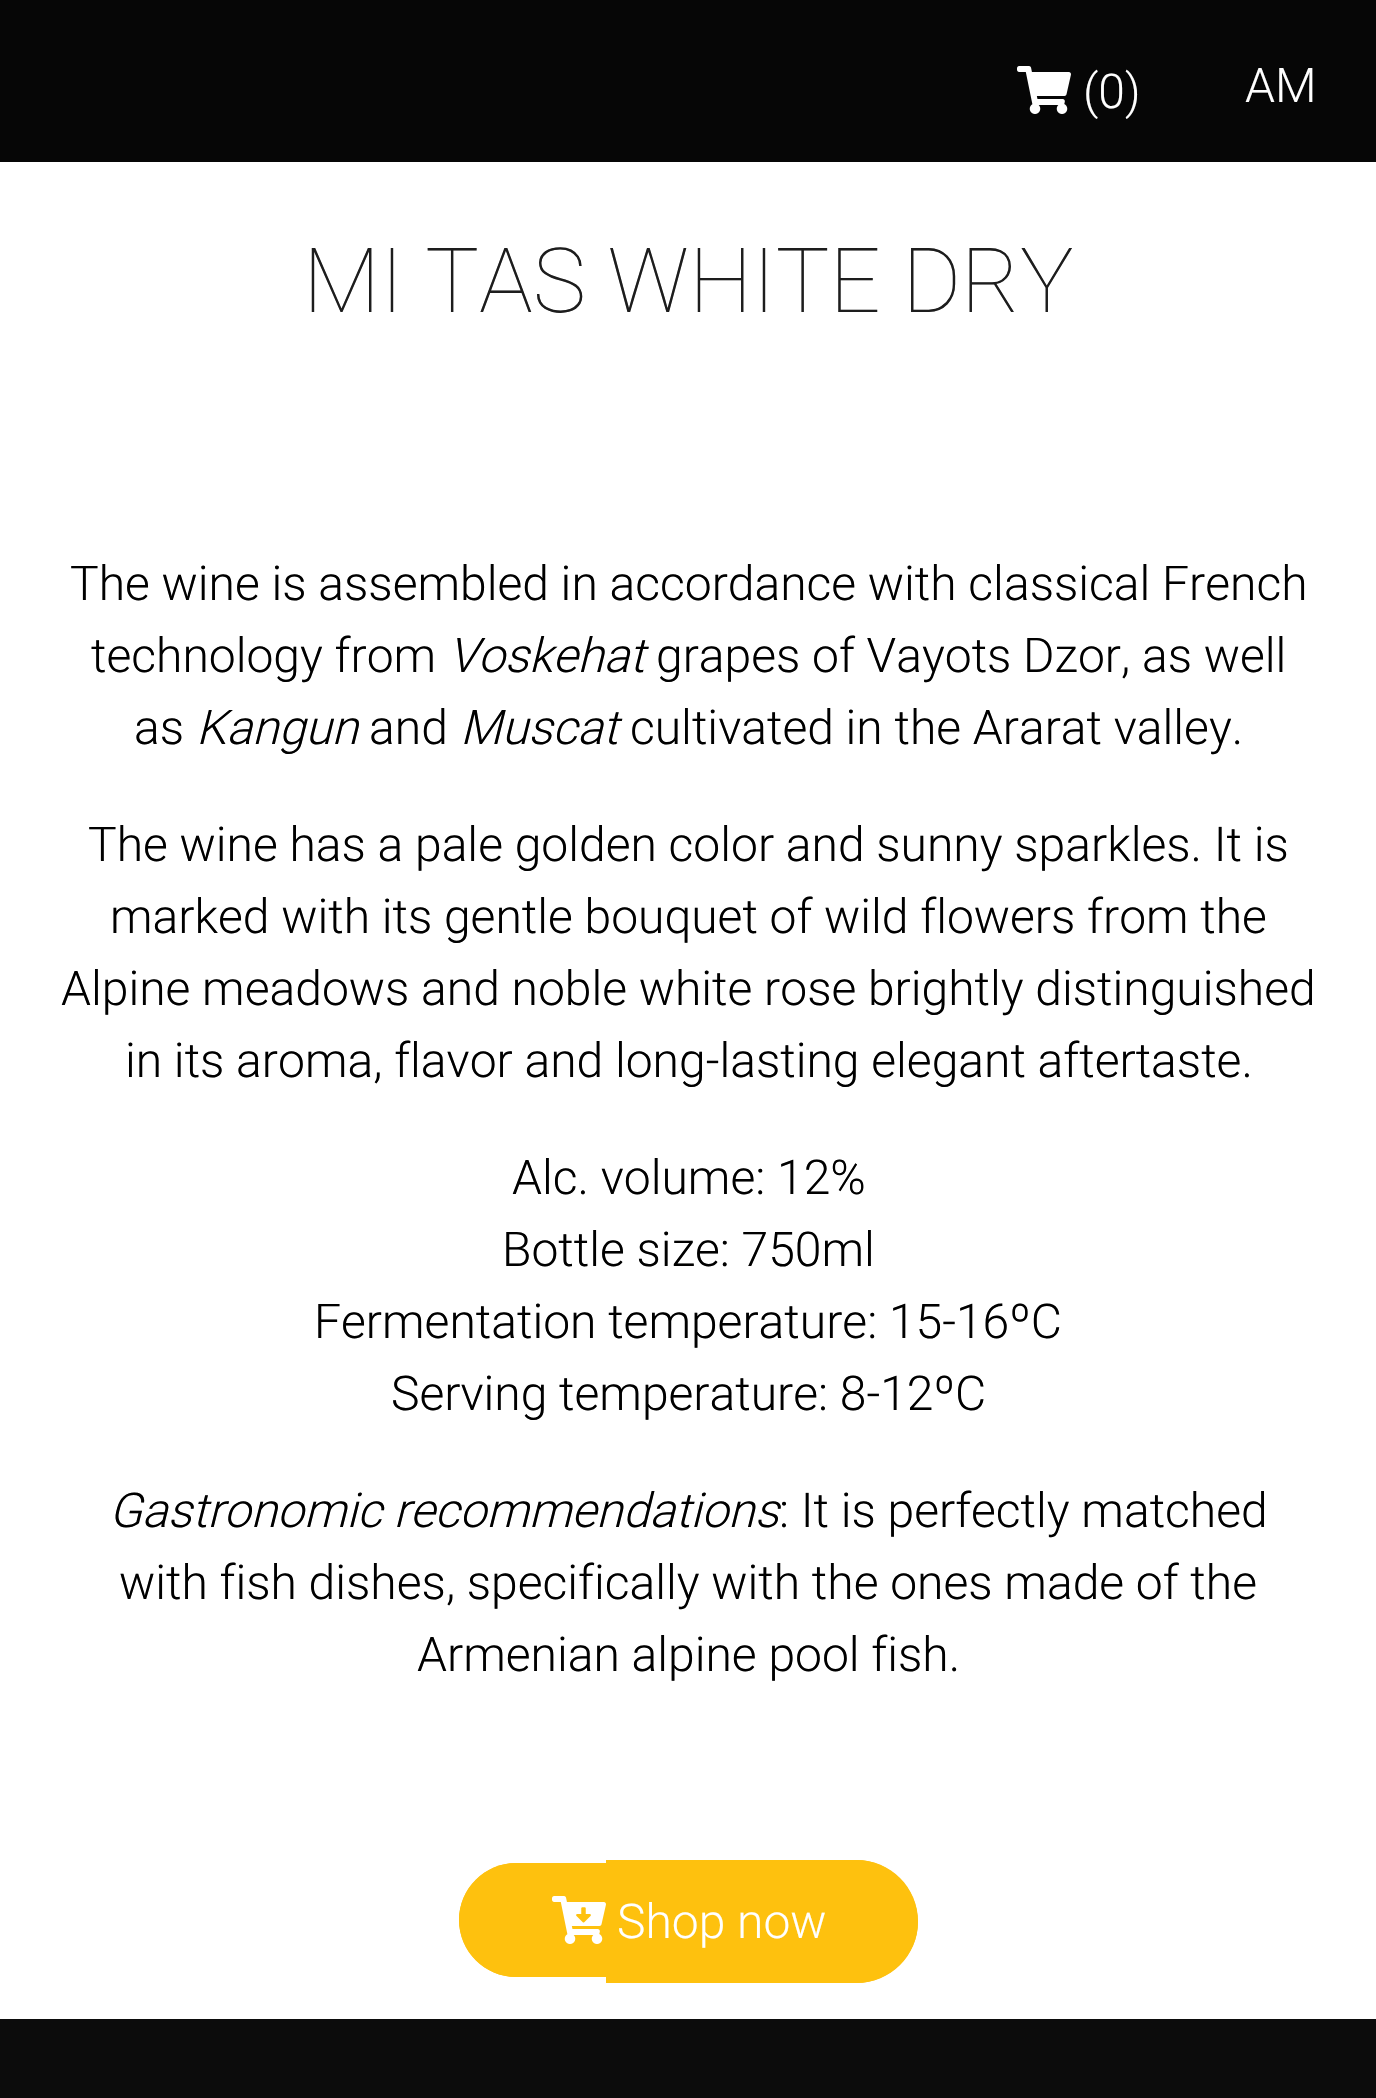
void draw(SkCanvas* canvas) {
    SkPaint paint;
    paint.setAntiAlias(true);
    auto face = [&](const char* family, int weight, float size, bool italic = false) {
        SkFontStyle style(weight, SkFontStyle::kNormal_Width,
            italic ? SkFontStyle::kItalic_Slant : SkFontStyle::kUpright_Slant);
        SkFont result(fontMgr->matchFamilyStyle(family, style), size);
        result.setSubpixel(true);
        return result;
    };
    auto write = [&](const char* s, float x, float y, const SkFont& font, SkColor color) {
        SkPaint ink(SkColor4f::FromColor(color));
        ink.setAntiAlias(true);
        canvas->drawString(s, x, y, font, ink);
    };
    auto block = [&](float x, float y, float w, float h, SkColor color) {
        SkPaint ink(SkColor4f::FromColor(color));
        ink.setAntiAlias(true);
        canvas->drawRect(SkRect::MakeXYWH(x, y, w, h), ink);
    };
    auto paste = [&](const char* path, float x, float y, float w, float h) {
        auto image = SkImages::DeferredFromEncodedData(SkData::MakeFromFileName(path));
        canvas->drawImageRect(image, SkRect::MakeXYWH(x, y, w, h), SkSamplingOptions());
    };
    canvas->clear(SkColorSetRGB(12, 12, 12));
    block(0, 0, 1376, 162, SkColorSetRGB(6, 6, 6));
    paste("pic1.png", 1017, 66, 54, 48);
    auto kFont1 = face("Roboto", 300, 48);
    write("(0)", 1083, 108, kFont1, SK_ColorWHITE);
    write("AM", 1245, 102, kFont1, SK_ColorWHITE);
    block(0, 162, 1376, 1857, SK_ColorWHITE);
    auto kFont2 = face("Roboto", 100, 90);
    write("MI TAS WHITE DRY", 303, 312, kFont2, SkColorSetRGB(29, 29, 29));
    write("The wine is assembled in accordance with classical French", 70, 600, kFont1, SK_ColorBLACK);
    write("technology from", 91, 672, kFont1, SK_ColorBLACK);
    auto kFont3 = face("Roboto", 300, 48, true);
    write("Voskehat", 448, 672, kFont3, SK_ColorBLACK);
    write("grapes of Vayots Dzor, as well", 656, 672, kFont1, SK_ColorBLACK);
    write("as", 134, 744, kFont1, SK_ColorBLACK);
    write("Kangun", 196, 744, kFont3, SK_ColorBLACK);
    write("and", 369, 744, kFont1, SK_ColorBLACK);
    write("Muscat", 460, 744, kFont3, SK_ColorBLACK);
    write("cultivated in the Ararat valley.", 630, 744, kFont1, SK_ColorBLACK);
    write("The wine has a pale golden color and sunny sparkles. It is", 88, 861, kFont1, SK_ColorBLACK);
    write("marked with its gentle bouquet of wild flowers from the", 110, 933, kFont1, SK_ColorBLACK);
    write("Alpine meadows and noble white rose brightly distinguished", 61, 1005, kFont1, SK_ColorBLACK);
    write("in its aroma, flavor and long-lasting elegant aftertaste.", 125, 1077, kFont1, SK_ColorBLACK);
    write("Alc. volume: 12%", 512, 1194, kFont1, SK_ColorBLACK);
    write("Bottle size: 750ml", 502, 1266, kFont1, SK_ColorBLACK);
    write("Fermentation temperature: 15-16ºС", 314, 1338, kFont1, SK_ColorBLACK);
    write("Serving temperature: 8-12ºC", 391, 1410, kFont1, SK_ColorBLACK);
    write("Gastronomic recommendations", 109, 1527, kFont3, SK_ColorBLACK);
    write(": It is perfectly matched", 779, 1527, kFont1, SK_ColorBLACK);
    write("with fish dishes, specifically with the ones made of the", 119, 1599, kFont1, SK_ColorBLACK);
    write("Armenian alpine pool fish.", 417, 1671, kFont1, SK_ColorBLACK);
    paint.setColor(SkColorSetRGB(254, 193, 14));
    canvas->drawPath(SkPathBuilder().moveTo(516, 1863).lineTo(606, 1863).lineTo(606, 1977).lineTo(516, 1977).cubicTo(484.5f, 1977, 459, 1951.5f, 459, 1920).cubicTo(459, 1888.5f, 484.5f, 1863, 516, 1863).close().detach(), paint);
    canvas->drawPath(SkPathBuilder(SkPathFillType::kEvenOdd).moveTo(516, 1863).lineTo(606, 1863).lineTo(606, 1977).lineTo(516, 1977).cubicTo(485, 1977, 459, 1951, 459, 1920).cubicTo(459, 1889, 485, 1863, 516, 1863).close().moveTo(516, 1866).lineTo(606, 1866).lineTo(606, 1974).lineTo(516, 1974).cubicTo(486, 1974, 462, 1950, 462, 1920).cubicTo(462, 1890, 486, 1866, 516, 1866).close().detach(), paint);
    canvas->drawPath(SkPathBuilder().moveTo(606, 1860).lineTo(856.5f, 1860).cubicTo(890.5f, 1860, 918, 1887.5f, 918, 1921.5f).cubicTo(918, 1955.5f, 890.5f, 1983, 856.5f, 1983).lineTo(606, 1983).close().detach(), paint);
    canvas->drawPath(SkPathBuilder(SkPathFillType::kEvenOdd).moveTo(606, 1860).lineTo(856, 1860).cubicTo(890, 1860, 918, 1888, 918, 1922).cubicTo(918, 1955, 890, 1983, 856, 1983).lineTo(606, 1983).close().moveTo(606, 1863).lineTo(856, 1863).cubicTo(889, 1863, 915, 1889, 915, 1922).cubicTo(915, 1954, 889, 1980, 856, 1980).lineTo(606, 1980).close().detach(), paint);
    paste("pic2.png", 552, 1896, 54, 48);
    write("Shop now", 617, 1938, kFont1, SK_ColorWHITE);
}
